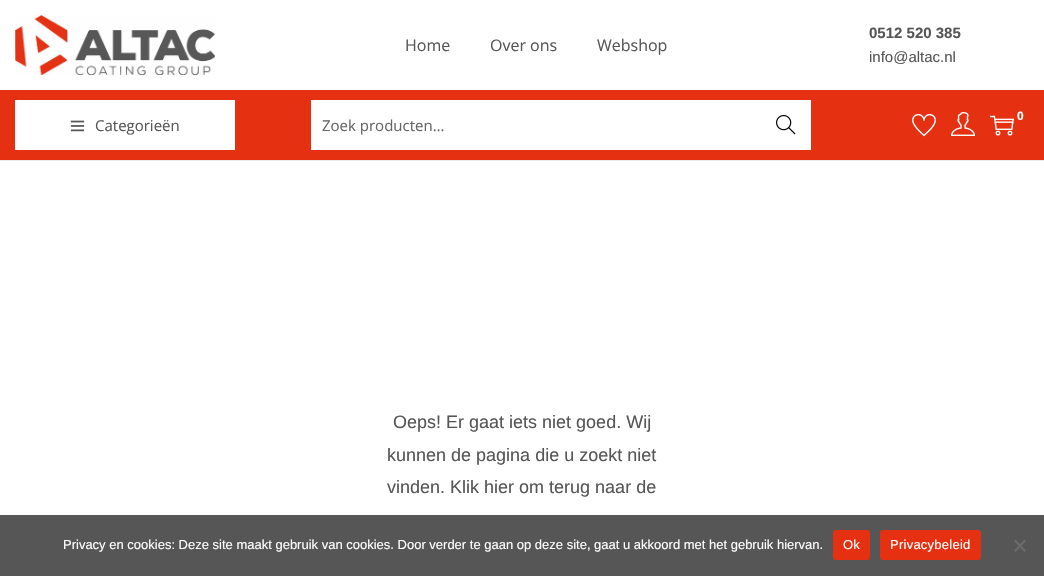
void draw(SkCanvas* canvas) {
    SkPaint paint;
    paint.setAntiAlias(true);
    auto face = [&](const char* family, int weight, float size, bool italic = false) {
        SkFontStyle style(weight, SkFontStyle::kNormal_Width,
            italic ? SkFontStyle::kItalic_Slant : SkFontStyle::kUpright_Slant);
        SkFont result(fontMgr->matchFamilyStyle(family, style), size);
        result.setSubpixel(true);
        return result;
    };
    auto write = [&](const char* s, float x, float y, const SkFont& font, SkColor color) {
        SkPaint ink(SkColor4f::FromColor(color));
        ink.setAntiAlias(true);
        canvas->drawString(s, x, y, font, ink);
    };
    auto writeSpaced = [&](const char* s, float x, float y, const SkFont& font, const SkPaint& ink, float letter, float word) {
        std::vector<SkGlyphID> glyphs(font.countText(s, strlen(s), SkTextEncoding::kUTF8));
        std::vector<float> xs(glyphs.size());
        font.textToGlyphs(s, strlen(s), SkTextEncoding::kUTF8, glyphs);
        font.getXPos(glyphs, xs, x);
        float extra = 0;
        for (size_t i = 0; i < glyphs.size(); i++) {
            xs[i] += extra;
            extra += letter + word * (glyphs[i] == font.unicharToGlyph(' '));
        }
        canvas->drawTextBlob(SkTextBlob::MakeFromPosHGlyphs(glyphs, xs, y, font), 0, 0, ink);
    };
    auto block = [&](float x, float y, float w, float h, SkColor color) {
        SkPaint ink(SkColor4f::FromColor(color));
        ink.setAntiAlias(true);
        canvas->drawRect(SkRect::MakeXYWH(x, y, w, h), ink);
    };
    auto card = [&](float x, float y, float w, float h, float radius, SkColor color) {
        SkPaint ink(SkColor4f::FromColor(color));
        ink.setAntiAlias(true);
        canvas->drawRoundRect(SkRect::MakeXYWH(x, y, w, h), radius, radius, ink);
    };
    auto paste = [&](const char* path, float x, float y, float w, float h) {
        auto image = SkImages::DeferredFromEncodedData(SkData::MakeFromFileName(path));
        canvas->drawImageRect(image, SkRect::MakeXYWH(x, y, w, h), SkSamplingOptions());
    };
    canvas->clear(SK_ColorWHITE);
    block(0, 160, 1044, 1, SkColorSetRGB(234, 234, 234));
    paste("pic1.png", 15, 15, 200, 60);
    auto kFont1 = face("Open Sans", 400, 16);
    write("Home", 405, 51, kFont1, SkColorSetRGB(87, 86, 86));
    write("Over ons", 490, 51, kFont1, SkColorSetRGB(87, 86, 86));
    write("Webshop", 597, 51, kFont1, SkColorSetRGB(87, 86, 86));
    auto kFont2 = face("Liberation Sans", 700, 15);
    write("0512 520 385", 869, 38, kFont2, SkColorSetRGB(87, 86, 86));
    auto kFont3 = face("Liberation Sans", 400, 15);
    write("info@altac.nl", 869, 62, kFont3, SkColorSetRGB(87, 86, 86));
    block(0, 90, 1044, 70, SkColorSetRGB(229, 48, 18));
    paste("pic2.png", 912, 113, 24, 24);
    paste("pic3.png", 951, 112, 24, 24);
    paste("pic4.png", 990, 115, 24, 21);
    auto kFont4 = face("Liberation Sans", 700, 12);
    write("0", 1017, 120, kFont4, SK_ColorWHITE);
    block(15, 100, 220, 50, SK_ColorWHITE);
    paste("pic5.png", 70, 120, 15, 12);
    auto kFont5 = face("Open Sans", 400, 15);
    write("Categorieën", 95, 131, kFont5, SkColorSetRGB(87, 86, 86));
    block(311, 100, 500, 50, SK_ColorWHITE);
    write("Zoek producten…", 322, 131, kFont5, SkColorSetRGB(102, 102, 102));
    paste("pic6.png", 776, 115, 20, 20);
    auto kFont6 = face("Liberation Sans", 400, 18);
    write("Oeps! Er gaat iets niet goed. Wij", 393, 428, kFont6, SkColorSetRGB(87, 86, 86));
    write("kunnen de pagina die u zoekt niet", 387, 461, kFont6, SkColorSetRGB(87, 86, 86));
    write("vinden. Klik hier om terug naar de", 387, 493, kFont6, SkColorSetRGB(87, 86, 86));
    block(0, 515, 1044, 61, SkColorSetRGB(87, 86, 86));
    auto kFont7 = face("Liberation Sans", 400, 13);
    write("Privacy en cookies: Deze site maakt gebruik van cookies. Door verder te gaan op deze site, gaat u akkoord met het gebruik hiervan.", 63, 549, kFont7, SK_ColorWHITE);
    card(833, 530, 37, 30, 3, SkColorSetRGB(229, 48, 18));
    paint.setColor(SK_ColorWHITE);
    writeSpaced("Ok", 843, 549, kFont7, paint, 0.25f, 0);
    card(880, 530, 101, 30, 3, SkColorSetRGB(229, 48, 18));
    writeSpaced("Privacybeleid", 890, 549, kFont7, paint, 0.25f, 0);
    paint.setColor(SkColorSetRGB(108, 107, 107));
    canvas->drawPath(SkPathBuilder().moveTo(1024.5f, 539.5f).lineTo(1026, 541).lineTo(1015.5f, 552).lineTo(1014, 550.5f).close().detach(), paint);
    canvas->drawPath(SkPathBuilder().moveTo(1014, 541).lineTo(1015.5f, 539.5f).lineTo(1026, 550.5f).lineTo(1024.5f, 552).close().detach(), paint);
}
